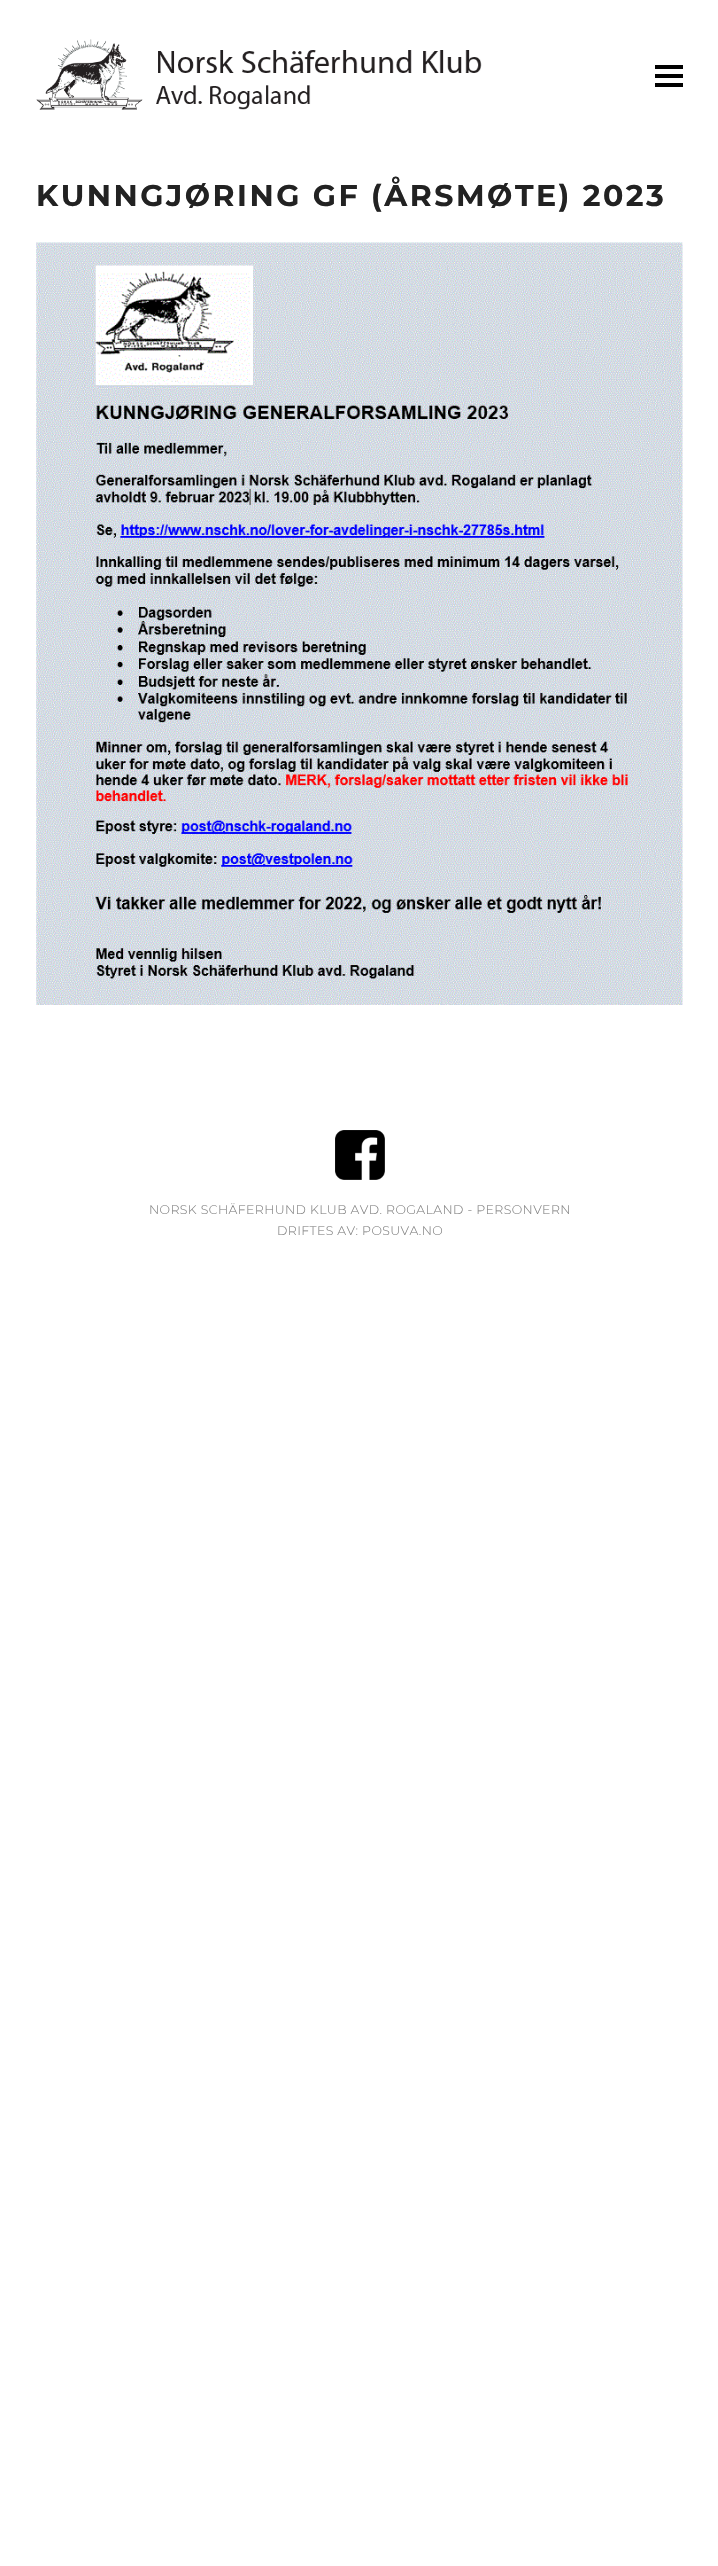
void draw(SkCanvas* canvas) {
    SkPaint paint;
    paint.setAntiAlias(true);
    auto face = [&](const char* family, int weight, float size, bool italic = false) {
        SkFontStyle style(weight, SkFontStyle::kNormal_Width,
            italic ? SkFontStyle::kItalic_Slant : SkFontStyle::kUpright_Slant);
        SkFont result(fontMgr->matchFamilyStyle(family, style), size);
        result.setSubpixel(true);
        return result;
    };
    auto writeSpaced = [&](const char* s, float x, float y, const SkFont& font, const SkPaint& ink, float letter, float word) {
        std::vector<SkGlyphID> glyphs(font.countText(s, strlen(s), SkTextEncoding::kUTF8));
        std::vector<float> xs(glyphs.size());
        font.textToGlyphs(s, strlen(s), SkTextEncoding::kUTF8, glyphs);
        font.getXPos(glyphs, xs, x);
        float extra = 0;
        for (size_t i = 0; i < glyphs.size(); i++) {
            xs[i] += extra;
            extra += letter + word * (glyphs[i] == font.unicharToGlyph(' '));
        }
        canvas->drawTextBlob(SkTextBlob::MakeFromPosHGlyphs(glyphs, xs, y, font), 0, 0, ink);
    };
    auto block = [&](float x, float y, float w, float h, SkColor color) {
        SkPaint ink(SkColor4f::FromColor(color));
        ink.setAntiAlias(true);
        canvas->drawRect(SkRect::MakeXYWH(x, y, w, h), ink);
    };
    auto paste = [&](const char* path, float x, float y, float w, float h) {
        auto image = SkImages::DeferredFromEncodedData(SkData::MakeFromFileName(path));
        canvas->drawImageRect(image, SkRect::MakeXYWH(x, y, w, h), SkSamplingOptions());
    };
    canvas->clear(SK_ColorWHITE);
    paste("pic1.png", 36, 39, 446, 71);
    block(655, 74, 28, 4, SK_ColorBLACK);
    block(655, 65, 28, 4, SK_ColorBLACK);
    block(655, 83, 28, 4, SK_ColorBLACK);
    auto kFont1 = face("Montserrat", 700, 30);
    paint.setColor(SkColorSetRGB(34, 34, 34));
    writeSpaced("KUNNGJØRING GF (ÅRSMØTE) 2023", 36, 206, kFont1, paint, 2.5f, 0);
    paste("pic2.png", 36, 242, 647, 763);
    paste("pic3.png", 335, 1130, 50, 50);
    auto kFont2 = face("Montserrat", 300, 12.5f);
    paint.setColor(SkColorSetRGB(130, 130, 130));
    writeSpaced("NORSK SCHÄFERHUND KLUB AVD. ROGALAND - PERSONVERN", 149, 1214, kFont2, paint, 0.4f, 0);
    writeSpaced("DRIFTES AV: POSUVA.NO", 277, 1235, kFont2, paint, 0.4f, 0);
}
